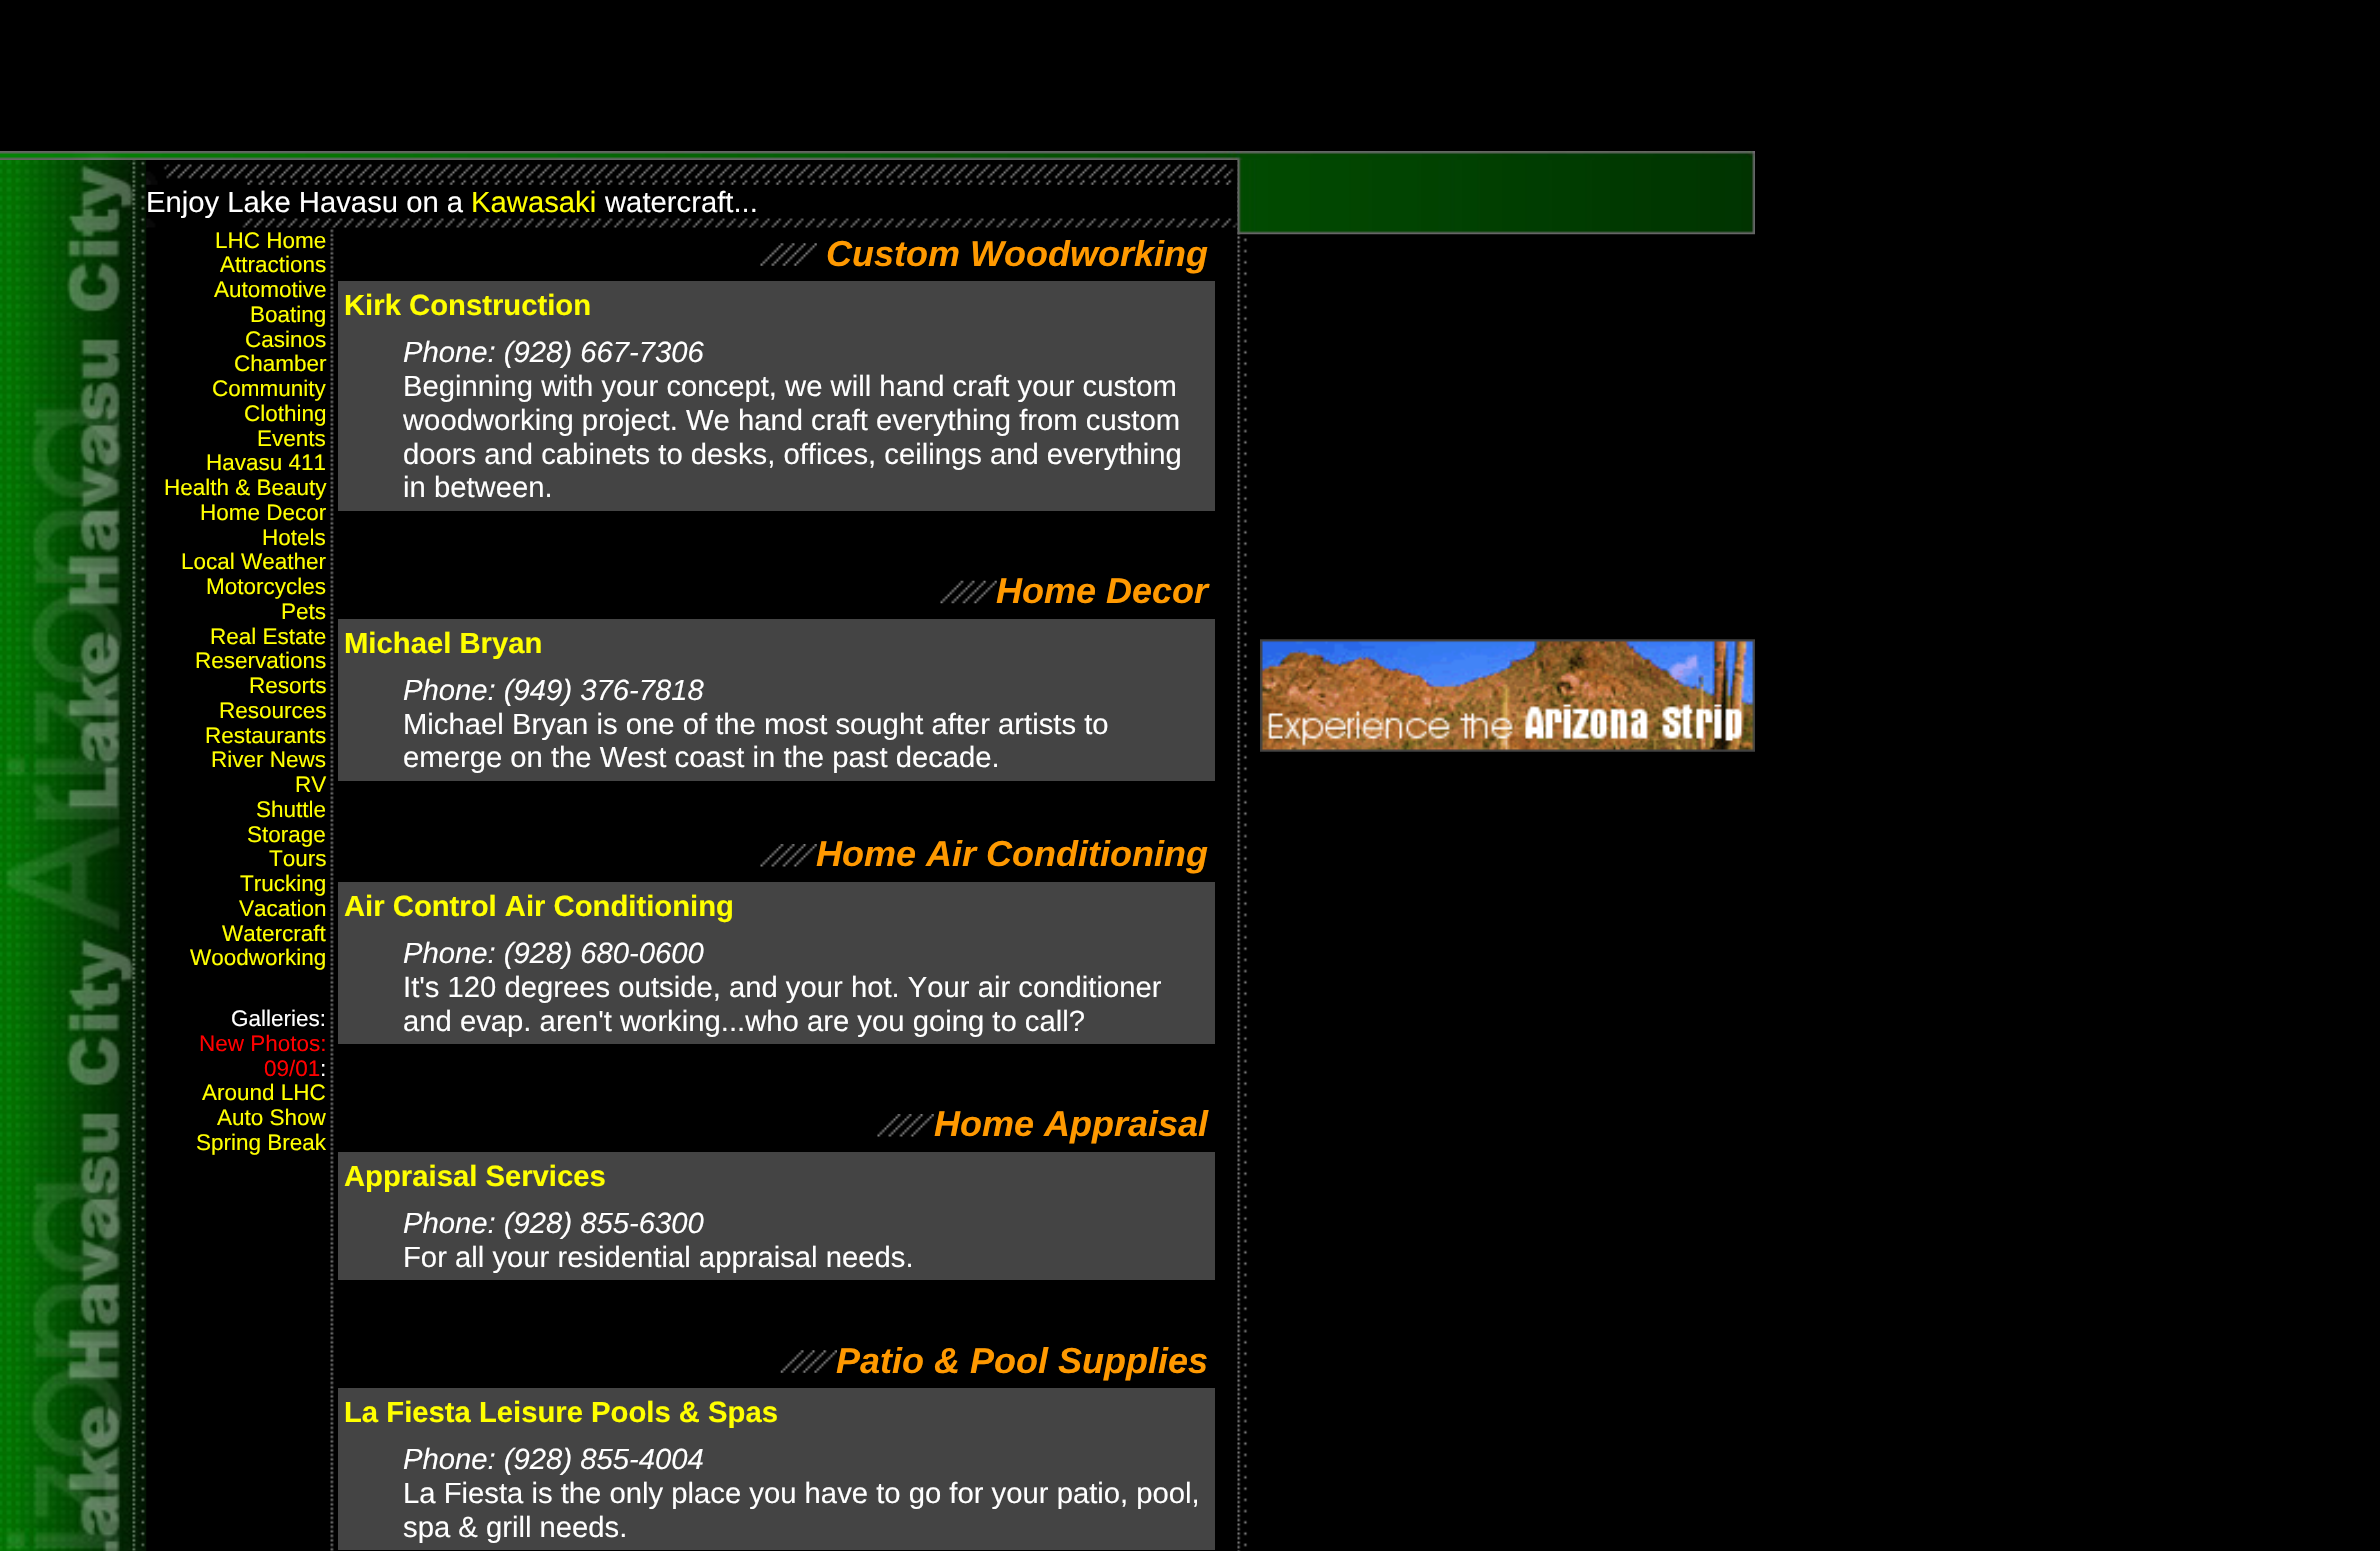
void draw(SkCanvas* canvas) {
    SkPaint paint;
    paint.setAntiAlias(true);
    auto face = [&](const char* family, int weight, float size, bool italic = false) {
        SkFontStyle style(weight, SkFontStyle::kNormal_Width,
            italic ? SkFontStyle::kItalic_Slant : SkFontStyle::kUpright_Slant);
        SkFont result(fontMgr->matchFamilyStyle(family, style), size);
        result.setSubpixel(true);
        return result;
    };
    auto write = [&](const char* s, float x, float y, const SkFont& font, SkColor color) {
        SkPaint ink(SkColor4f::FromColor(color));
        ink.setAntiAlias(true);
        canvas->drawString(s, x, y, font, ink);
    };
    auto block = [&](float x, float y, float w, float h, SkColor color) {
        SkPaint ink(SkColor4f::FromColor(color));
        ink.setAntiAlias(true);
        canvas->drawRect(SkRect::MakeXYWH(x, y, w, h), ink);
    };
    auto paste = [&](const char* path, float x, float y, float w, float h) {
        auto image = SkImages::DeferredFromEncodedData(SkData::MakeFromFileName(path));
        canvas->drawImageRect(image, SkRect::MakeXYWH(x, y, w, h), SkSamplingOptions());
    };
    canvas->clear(SK_ColorBLACK);
    paste("pic1.png", 0, 151, 1755, 9);
    paste("pic2.png", 0, 160, 147, 1391);
    paste("pic10.png", 1237, 160, 11, 1391);
    paste("pic3.png", 146, 160, 1092, 25);
    auto kFont1 = face("Liberation Sans", 400, 29.25f);
    write("Enjoy Lake Havasu on a", 146, 212, kFont1, SK_ColorWHITE);
    write("Kawasaki", 471, 212, kFont1, SkColorSetRGB(255, 255, 0));
    write("watercraft...", 605, 212, kFont1, SK_ColorWHITE);
    paste("pic5.png", 330, 227, 4, 1324);
    paste("pic4.png", 146, 218, 1092, 10);
    auto kFont2 = face("Liberation Sans", 400, 22.5f);
    write("LHC Home", 215, 248, kFont2, SkColorSetRGB(255, 255, 0));
    write("Attractions", 220, 272, kFont2, SkColorSetRGB(255, 255, 0));
    write("Automotive", 214, 297, kFont2, SkColorSetRGB(255, 255, 0));
    write("Boating", 250, 322, kFont2, SkColorSetRGB(255, 255, 0));
    write("Casinos", 245, 347, kFont2, SkColorSetRGB(255, 255, 0));
    write("Chamber", 234, 371, kFont2, SkColorSetRGB(255, 255, 0));
    write("Community", 212, 396, kFont2, SkColorSetRGB(255, 255, 0));
    write("Clothing", 244, 421, kFont2, SkColorSetRGB(255, 255, 0));
    write("Events", 257, 446, kFont2, SkColorSetRGB(255, 255, 0));
    write("Havasu 411", 206, 470, kFont2, SkColorSetRGB(255, 255, 0));
    write("Health & Beauty", 164, 495, kFont2, SkColorSetRGB(255, 255, 0));
    write("Home Decor", 200, 520, kFont2, SkColorSetRGB(255, 255, 0));
    write("Hotels", 262, 545, kFont2, SkColorSetRGB(255, 255, 0));
    write("Local Weather", 181, 569, kFont2, SkColorSetRGB(255, 255, 0));
    write("Motorcycles", 206, 594, kFont2, SkColorSetRGB(255, 255, 0));
    write("Pets", 281, 619, kFont2, SkColorSetRGB(255, 255, 0));
    write("Real Estate", 210, 644, kFont2, SkColorSetRGB(255, 255, 0));
    write("Reservations", 195, 668, kFont2, SkColorSetRGB(255, 255, 0));
    write("Resorts", 249, 693, kFont2, SkColorSetRGB(255, 255, 0));
    write("Resources", 219, 718, kFont2, SkColorSetRGB(255, 255, 0));
    write("Restaurants", 205, 743, kFont2, SkColorSetRGB(255, 255, 0));
    write("River News", 211, 767, kFont2, SkColorSetRGB(255, 255, 0));
    write("RV", 295, 792, kFont2, SkColorSetRGB(255, 255, 0));
    write("Shuttle", 256, 817, kFont2, SkColorSetRGB(255, 255, 0));
    write("Storage", 247, 842, kFont2, SkColorSetRGB(255, 255, 0));
    write("Tours", 269, 866, kFont2, SkColorSetRGB(255, 255, 0));
    write("Trucking", 240, 891, kFont2, SkColorSetRGB(255, 255, 0));
    write("Vacation", 239, 916, kFont2, SkColorSetRGB(255, 255, 0));
    write("Watercraft", 222, 941, kFont2, SkColorSetRGB(255, 255, 0));
    write("Woodworking", 190, 965, kFont2, SkColorSetRGB(255, 255, 0));
    write("Galleries:", 231, 1026, kFont2, SK_ColorWHITE);
    write("New Photos:", 199, 1051, kFont2, SkColorSetRGB(255, 0, 0));
    write("09/01", 264, 1076, kFont2, SkColorSetRGB(255, 0, 0));
    write(":", 320, 1076, kFont2, SK_ColorWHITE);
    write("Around LHC", 202, 1100, kFont2, SkColorSetRGB(255, 255, 0));
    write("Auto Show", 217, 1125, kFont2, SkColorSetRGB(255, 255, 0));
    write("Spring Break", 196, 1150, kFont2, SkColorSetRGB(255, 255, 0));
    paste("pic6.png", 760, 243, 57, 23);
    auto kFont3 = face("Liberation Sans", 700, 36, true);
    write("Custom Woodworking", 826, 266, kFont3, SkColorSetRGB(255, 153, 0));
    block(338, 281, 877, 230, SkColorSetRGB(68, 68, 68));
    auto kFont4 = face("Liberation Sans", 700, 29.25f);
    write("Kirk Construction", 344, 315, kFont4, SkColorSetRGB(255, 255, 0));
    auto kFont5 = face("Liberation Sans", 400, 29.25f, true);
    write("Phone: (928) 667-7306", 403, 362, kFont5, SK_ColorWHITE);
    write("Beginning with your concept, we will hand craft your custom", 403, 396, kFont1, SK_ColorWHITE);
    write("woodworking project. We hand craft everything from custom", 403, 430, kFont1, SK_ColorWHITE);
    write("doors and cabinets to desks, offices, ceilings and everything", 403, 464, kFont1, SK_ColorWHITE);
    write("in between.", 403, 497, kFont1, SK_ColorWHITE);
    paste("pic7.png", 940, 580, 57, 24);
    write("Home Decor", 996, 603, kFont3, SkColorSetRGB(255, 153, 0));
    block(338, 619, 877, 162, SkColorSetRGB(68, 68, 68));
    write("Michael Bryan", 344, 653, kFont4, SkColorSetRGB(255, 255, 0));
    write("Phone: (949) 376-7818", 403, 700, kFont5, SK_ColorWHITE);
    write("Michael Bryan is one of the most sought after artists to", 403, 734, kFont1, SK_ColorWHITE);
    write("emerge on the West coast in the past decade.", 403, 767, kFont1, SK_ColorWHITE);
    paste("pic8.png", 760, 844, 57, 23);
    write("Home Air Conditioning", 816, 866, kFont3, SkColorSetRGB(255, 153, 0));
    block(338, 882, 877, 162, SkColorSetRGB(68, 68, 68));
    write("Air Control Air Conditioning", 344, 916, kFont4, SkColorSetRGB(255, 255, 0));
    write("Phone: (928) 680-0600", 403, 963, kFont5, SK_ColorWHITE);
    write("It's 120 degrees outside, and your hot. Your air conditioner", 403, 997, kFont1, SK_ColorWHITE);
    write("and evap. aren't working...who are you going to call?", 403, 1031, kFont1, SK_ColorWHITE);
    paste("pic8.png", 877, 1114, 57, 23);
    write("Home Appraisal", 934, 1136, kFont3, SkColorSetRGB(255, 153, 0));
    block(338, 1152, 877, 128, SkColorSetRGB(68, 68, 68));
    write("Appraisal Services", 344, 1186, kFont4, SkColorSetRGB(255, 255, 0));
    write("Phone: (928) 855-6300", 403, 1233, kFont5, SK_ColorWHITE);
    write("For all your residential appraisal needs.", 403, 1267, kFont1, SK_ColorWHITE);
    paste("pic9.png", 780, 1350, 57, 23);
    write("Patio & Pool Supplies", 836, 1373, kFont3, SkColorSetRGB(255, 153, 0));
    block(338, 1388, 877, 162, SkColorSetRGB(68, 68, 68));
    write("La Fiesta Leisure Pools & Spas", 344, 1422, kFont4, SkColorSetRGB(255, 255, 0));
    write("Phone: (928) 855-4004", 403, 1469, kFont5, SK_ColorWHITE);
    write("La Fiesta is the only place you have to go for your patio, pool,", 403, 1503, kFont1, SK_ColorWHITE);
    write("spa & grill needs.", 403, 1537, kFont1, SK_ColorWHITE);
    paste("pic11.png", 1237, 160, 518, 75);
    paste("pic12.png", 1260, 639, 495, 113);
}
